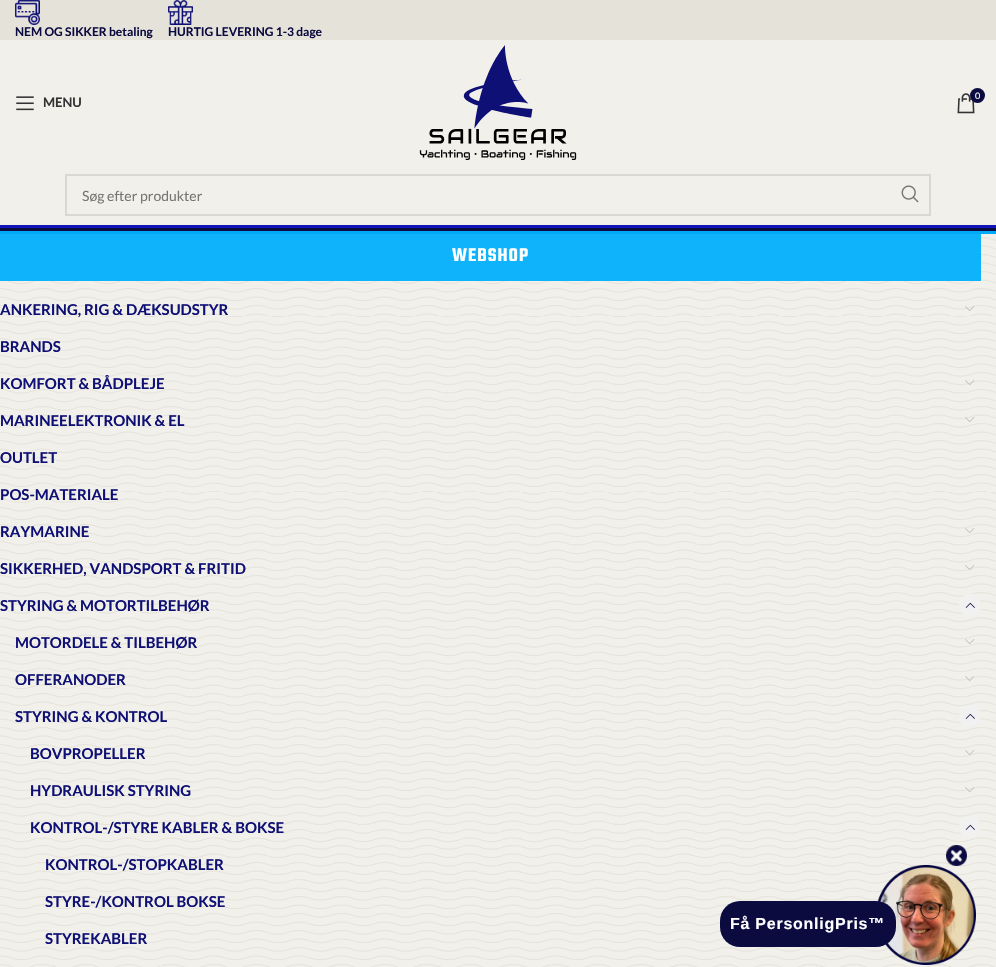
void draw(SkCanvas* canvas) {
    SkPaint paint;
    paint.setAntiAlias(true);
    auto face = [&](const char* family, int weight, float size, bool italic = false) {
        SkFontStyle style(weight, SkFontStyle::kNormal_Width,
            italic ? SkFontStyle::kItalic_Slant : SkFontStyle::kUpright_Slant);
        SkFont result(fontMgr->matchFamilyStyle(family, style), size);
        result.setSubpixel(true);
        return result;
    };
    auto write = [&](const char* s, float x, float y, const SkFont& font, SkColor color) {
        SkPaint ink(SkColor4f::FromColor(color));
        ink.setAntiAlias(true);
        canvas->drawString(s, x, y, font, ink);
    };
    auto writeSpaced = [&](const char* s, float x, float y, const SkFont& font, const SkPaint& ink, float letter, float word) {
        std::vector<SkGlyphID> glyphs(font.countText(s, strlen(s), SkTextEncoding::kUTF8));
        std::vector<float> xs(glyphs.size());
        font.textToGlyphs(s, strlen(s), SkTextEncoding::kUTF8, glyphs);
        font.getXPos(glyphs, xs, x);
        float extra = 0;
        for (size_t i = 0; i < glyphs.size(); i++) {
            xs[i] += extra;
            extra += letter + word * (glyphs[i] == font.unicharToGlyph(' '));
        }
        canvas->drawTextBlob(SkTextBlob::MakeFromPosHGlyphs(glyphs, xs, y, font), 0, 0, ink);
    };
    auto block = [&](float x, float y, float w, float h, SkColor color) {
        SkPaint ink(SkColor4f::FromColor(color));
        ink.setAntiAlias(true);
        canvas->drawRect(SkRect::MakeXYWH(x, y, w, h), ink);
    };
    auto card = [&](float x, float y, float w, float h, float radius, SkColor color) {
        SkPaint ink(SkColor4f::FromColor(color));
        ink.setAntiAlias(true);
        canvas->drawRoundRect(SkRect::MakeXYWH(x, y, w, h), radius, radius, ink);
    };
    auto paste = [&](const char* path, float x, float y, float w, float h) {
        auto image = SkImages::DeferredFromEncodedData(SkData::MakeFromFileName(path));
        canvas->drawImageRect(image, SkRect::MakeXYWH(x, y, w, h), SkSamplingOptions());
    };
    canvas->clear(SkColorSetRGB(242, 240, 234));
    paint.setStyle(SkPaint::kStroke_Style);
    paint.setStrokeWidth(3);
    paint.setColor(SkColorSetRGB(11, 11, 64));
    canvas->drawRect(SkRect::MakeXYWH(-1.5f, -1.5f, 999, 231), paint);
    paint.setColor(SkColorSetRGB(0, 170, 247));
    canvas->drawRect(SkRect::MakeXYWH(-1.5f, -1.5f, 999, 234), paint);
    block(0, 0, 996, 40, SkColorSetRGB(229, 226, 217));
    paste("pic1.png", 15, 0, 25, 25);
    auto kFont1 = face("Lato", 700, 12);
    write("NEM OG SIKKER betaling", 15, 36, kFont1, SkColorSetRGB(11, 11, 64));
    paste("pic2.png", 168, 0, 25, 25);
    write("HURTIG LEVERING 1-3 dage", 168, 36, kFont1, SkColorSetRGB(11, 11, 64));
    paste("pic3.png", 419, 45, 158, 115);
    paste("pic4.png", 957, 93, 18, 21);
    paint.setStyle(SkPaint::kFill_Style);
    paint.setColor(SkColorSetRGB(11, 11, 64));
    canvas->drawCircle(977.5f, 95.5f, 7.5f, paint);
    auto kFont2 = face("Lato", 400, 9);
    write("0", 975, 99, kFont2, SK_ColorWHITE);
    paste("pic5.png", 16, 96, 18, 15);
    auto kFont3 = face("Lato", 700, 13);
    write("MENU", 43, 107, kFont3, SkColorSetRGB(51, 51, 51));
    block(0, 225, 996, 3, SkColorSetRGB(18, 20, 186));
    paint.setStyle(SkPaint::kStroke_Style);
    paint.setStrokeWidth(2);
    paint.setColor(SkColorSetRGB(218, 216, 211));
    canvas->drawRect(SkRect::MakeXYWH(66, 175, 864, 40), paint);
    auto kFont4 = face("Lato", 400, 14);
    write("Søg efter produkter", 82, 201, kFont4, SkColorSetRGB(118, 118, 118));
    paste("pic6.png", 901, 185, 18, 18);
    paste("pic7.png", 0, 237, 996, 730);
    block(0, 234, 981, 47, SkColorSetRGB(15, 179, 252));
    auto kFont5 = face("Teko", 600, 20);
    paint.setStyle(SkPaint::kFill_Style);
    paint.setColor(SK_ColorWHITE);
    writeSpaced("WEBSHOP", 452, 261, kFont5, paint, 1, 0);
    auto kFont6 = face("Lato", 700, 15);
    write("ANKERING, RIG & DÆKSUDSTYR", 0, 315, kFont6, SkColorSetRGB(15, 16, 117));
    paste("pic8.png", 965, 306, 10, 5);
    write("BRANDS", 0, 352, kFont6, SkColorSetRGB(15, 16, 117));
    write("KOMFORT & BÅDPLEJE", 0, 389, kFont6, SkColorSetRGB(15, 16, 117));
    paste("pic9.png", 965, 380, 10, 5);
    write("MARINEELEKTRONIK & EL", 0, 426, kFont6, SkColorSetRGB(15, 16, 117));
    paste("pic10.png", 965, 417, 10, 5);
    write("OUTLET", 0, 463, kFont6, SkColorSetRGB(15, 16, 117));
    write("POS-MATERIALE", 0, 500, kFont6, SkColorSetRGB(15, 16, 117));
    write("RAYMARINE", 0, 537, kFont6, SkColorSetRGB(15, 16, 117));
    paste("pic11.png", 965, 528, 10, 5);
    write("SIKKERHED, VANDSPORT & FRITID", 0, 574, kFont6, SkColorSetRGB(15, 16, 117));
    paste("pic12.png", 965, 565, 10, 5);
    write("STYRING & MOTORTILBEHØR", 0, 611, kFont6, SkColorSetRGB(15, 16, 117));
    paint.setColor(SkColorSetRGB(241, 241, 241));
    canvas->drawPath(SkPathBuilder().moveTo(970, 616).cubicTo(955.5f, 616, 955.5f, 594, 970, 594).cubicTo(984.5f, 594, 984.5f, 616, 970, 616).close().detach(), paint);
    paste("pic13.png", 965, 602, 10, 6);
    write("MOTORDELE & TILBEHØR", 15, 648, kFont6, SkColorSetRGB(15, 16, 117));
    paste("pic14.png", 965, 639, 10, 5);
    write("OFFERANODER", 15, 685, kFont6, SkColorSetRGB(15, 16, 117));
    paste("pic15.png", 965, 676, 10, 5);
    write("STYRING & KONTROL", 15, 722, kFont6, SkColorSetRGB(15, 16, 117));
    canvas->drawPath(SkPathBuilder().moveTo(970, 727).cubicTo(955.5f, 727, 955.5f, 705, 970, 705).cubicTo(984.5f, 705, 984.5f, 727, 970, 727).close().detach(), paint);
    paste("pic13.png", 965, 713, 10, 6);
    write("BOVPROPELLER", 30, 759, kFont6, SkColorSetRGB(15, 16, 117));
    paste("pic16.png", 965, 750, 10, 5);
    write("HYDRAULISK STYRING", 30, 796, kFont6, SkColorSetRGB(15, 16, 117));
    paste("pic17.png", 965, 787, 10, 5);
    write("KONTROL-/STYRE KABLER & BOKSE", 30, 833, kFont6, SkColorSetRGB(15, 16, 117));
    canvas->drawPath(SkPathBuilder().moveTo(970, 838).cubicTo(955.5f, 838, 955.5f, 816, 970, 816).cubicTo(984.5f, 816, 984.5f, 838, 970, 838).close().detach(), paint);
    paste("pic13.png", 965, 824, 10, 6);
    write("KONTROL-/STOPKABLER", 45, 870, kFont6, SkColorSetRGB(15, 16, 117));
    write("STYRE-/KONTROL BOKSE", 45, 907, kFont6, SkColorSetRGB(15, 16, 117));
    write("STYREKABLER", 45, 944, kFont6, SkColorSetRGB(15, 16, 117));
    paste("pic19.png", 877, 865, 99, 100);
    card(720, 901, 176, 46, 20, SkColorSetRGB(11, 11, 64));
    auto kFont7 = face("Liberation Sans", 700, 16);
    paint.setColor(SK_ColorWHITE);
    writeSpaced("Få PersonligPris™", 730, 929, kFont7, paint, 0.75f, 0);
    paste("pic18.png", 946, 845, 21, 21);
}
